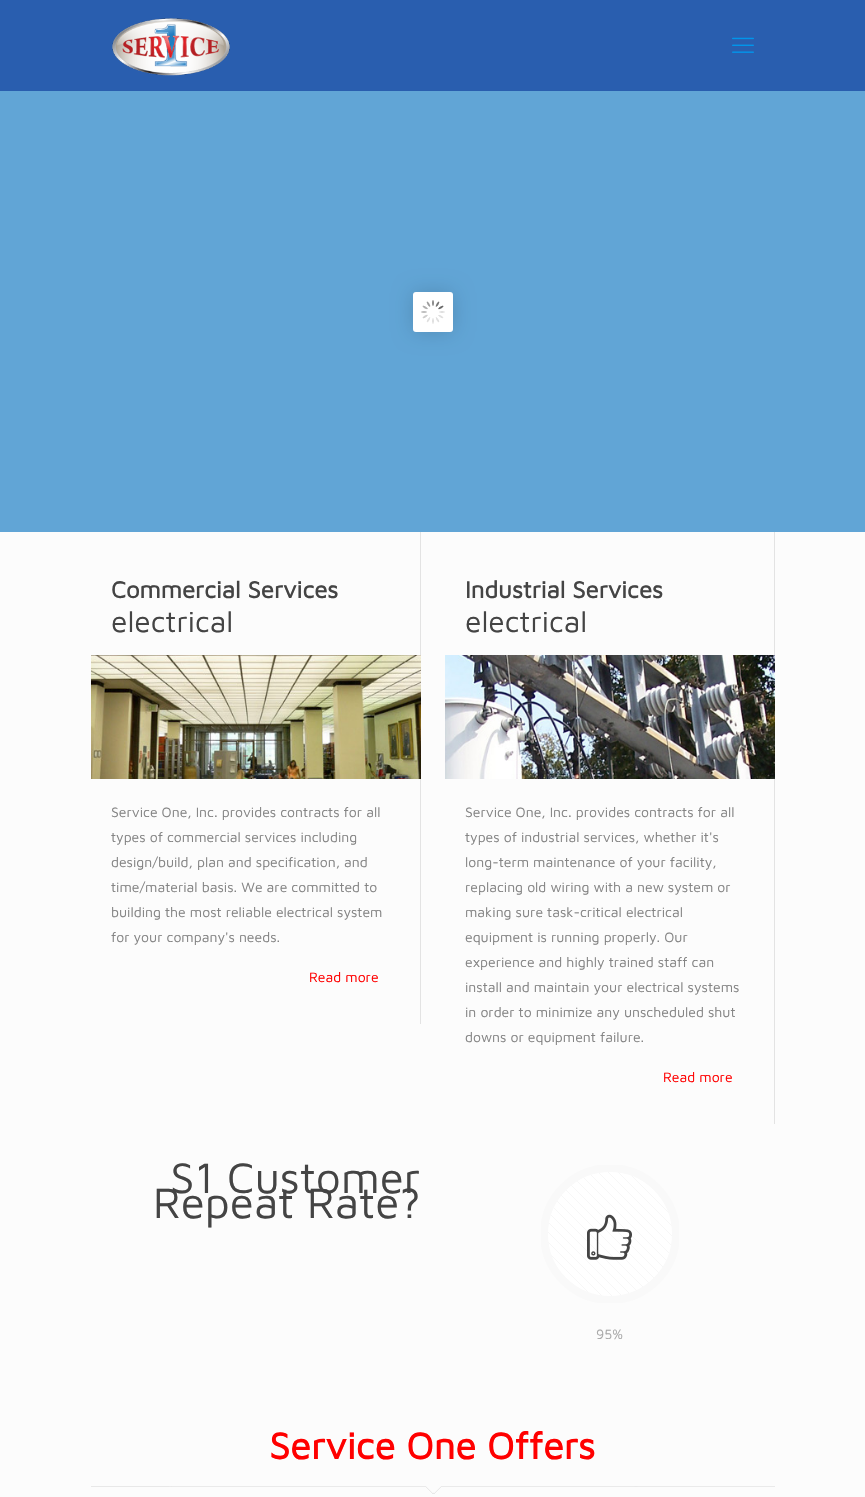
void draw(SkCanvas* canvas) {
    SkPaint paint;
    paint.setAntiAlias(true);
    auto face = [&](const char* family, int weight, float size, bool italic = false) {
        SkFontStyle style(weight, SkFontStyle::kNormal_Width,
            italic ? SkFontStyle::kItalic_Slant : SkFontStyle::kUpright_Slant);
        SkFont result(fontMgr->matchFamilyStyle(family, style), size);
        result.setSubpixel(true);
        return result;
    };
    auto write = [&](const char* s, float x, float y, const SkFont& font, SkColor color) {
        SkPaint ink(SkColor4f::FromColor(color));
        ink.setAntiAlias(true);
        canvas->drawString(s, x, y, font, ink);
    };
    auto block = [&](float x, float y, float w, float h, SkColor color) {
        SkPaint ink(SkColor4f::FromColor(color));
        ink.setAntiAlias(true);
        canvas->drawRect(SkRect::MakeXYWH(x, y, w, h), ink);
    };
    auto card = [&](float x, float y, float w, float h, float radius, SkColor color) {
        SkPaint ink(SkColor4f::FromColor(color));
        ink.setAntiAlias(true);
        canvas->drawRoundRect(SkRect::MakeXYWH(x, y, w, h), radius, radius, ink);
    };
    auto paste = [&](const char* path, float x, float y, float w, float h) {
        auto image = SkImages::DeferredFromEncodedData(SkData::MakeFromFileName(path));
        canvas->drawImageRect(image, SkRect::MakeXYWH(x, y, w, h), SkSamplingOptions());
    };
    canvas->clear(SkColorSetRGB(252, 252, 252));
    block(0, 91, 865, 441, SkColorSetRGB(97, 165, 214));
    block(0, 0, 865, 91, SkColorSetRGB(41, 94, 175));
    paste("pic1.png", 112, 18, 118, 58);
    paste("pic2.png", 732, 37, 22, 16);
    paint.setColor(SkColorSetARGB(38, 0, 0, 0));
    paint.setMaskFilter(SkMaskFilter::MakeBlur(kNormal_SkBlurStyle, 10));
    canvas->drawRoundRect(SkRect::MakeXYWH(413, 292, 40, 40), 3, 3, paint);
    paint.setMaskFilter(nullptr);
    card(413, 292, 40, 40, 3, SK_ColorWHITE);
    paste("pic3.png", 421, 300, 24, 24);
    block(420, 532, 1, 123, SkColorSetRGB(227, 227, 227));
    auto kFont1 = face("Maven Pro", 700, 24);
    write("Commercial Services", 111, 598, kFont1, SkColorSetRGB(68, 68, 68));
    auto kFont2 = face("Maven Pro", 400, 30);
    write("electrical", 111, 632, kFont2, SkColorSetRGB(68, 68, 68));
    paste("pic4.png", 91, 655, 330, 124);
    block(420, 779, 1, 245, SkColorSetRGB(227, 227, 227));
    auto kFont3 = face("Maven Pro", 400, 14);
    write("Service One, Inc. provides contracts for all", 111, 817, kFont3, SkColorSetRGB(132, 132, 132));
    write("types of commercial services including", 111, 842, kFont3, SkColorSetRGB(132, 132, 132));
    write("design/build, plan and specification, and", 111, 867, kFont3, SkColorSetRGB(132, 132, 132));
    write("time/material basis. We are committed to", 111, 892, kFont3, SkColorSetRGB(132, 132, 132));
    write("building the most reliable electrical system", 111, 917, kFont3, SkColorSetRGB(132, 132, 132));
    write("for your company's needs.", 111, 942, kFont3, SkColorSetRGB(132, 132, 132));
    write("Read more", 309, 982, kFont3, SkColorSetRGB(255, 0, 0));
    block(774, 532, 1, 123, SkColorSetRGB(227, 227, 227));
    write("Industrial Services", 465, 598, kFont1, SkColorSetRGB(68, 68, 68));
    write("electrical", 465, 632, kFont2, SkColorSetRGB(68, 68, 68));
    paste("pic5.png", 445, 655, 330, 124);
    block(774, 779, 1, 345, SkColorSetRGB(227, 227, 227));
    write("Service One, Inc. provides contracts for all", 465, 817, kFont3, SkColorSetRGB(132, 132, 132));
    write("types of industrial services, whether it's", 465, 842, kFont3, SkColorSetRGB(132, 132, 132));
    write("long-term maintenance of your facility,", 465, 867, kFont3, SkColorSetRGB(132, 132, 132));
    write("replacing old wiring with a new system or", 465, 892, kFont3, SkColorSetRGB(132, 132, 132));
    write("making sure task-critical electrical", 465, 917, kFont3, SkColorSetRGB(132, 132, 132));
    write("equipment is running properly. Our", 465, 942, kFont3, SkColorSetRGB(132, 132, 132));
    write("experience and highly trained staff can", 465, 967, kFont3, SkColorSetRGB(132, 132, 132));
    write("install and maintain your electrical systems", 465, 992, kFont3, SkColorSetRGB(132, 132, 132));
    write("in order to minimize any unscheduled shut", 465, 1017, kFont3, SkColorSetRGB(132, 132, 132));
    write("downs or equipment failure.", 465, 1042, kFont3, SkColorSetRGB(132, 132, 132));
    write("Read more", 663, 1082, kFont3, SkColorSetRGB(255, 0, 0));
    auto kFont4 = face("Maven Pro", 400, 44);
    write("S1 Customer", 170, 1193, kFont4, SkColorSetRGB(68, 68, 68));
    write("Repeat Rate?", 153, 1218, kFont4, SkColorSetRGB(68, 68, 68));
    paint.setColor(SK_ColorWHITE);
    canvas->drawCircle(610, 1234, 69, paint);
    paste("pic6.png", 548, 1172, 124, 124);
    paste("pic7.png", 541, 1165, 138, 138);
    paste("pic8.png", 587, 1214, 45, 46);
    write("95%", 596, 1339, kFont3, SkColorSetRGB(168, 168, 168));
    paste("pic9.png", 91, 1486, 684, 8);
    auto kFont5 = face("Maven Pro", 700, 38);
    write("Service One Offers", 269, 1459, kFont5, SkColorSetRGB(255, 0, 0));
}
